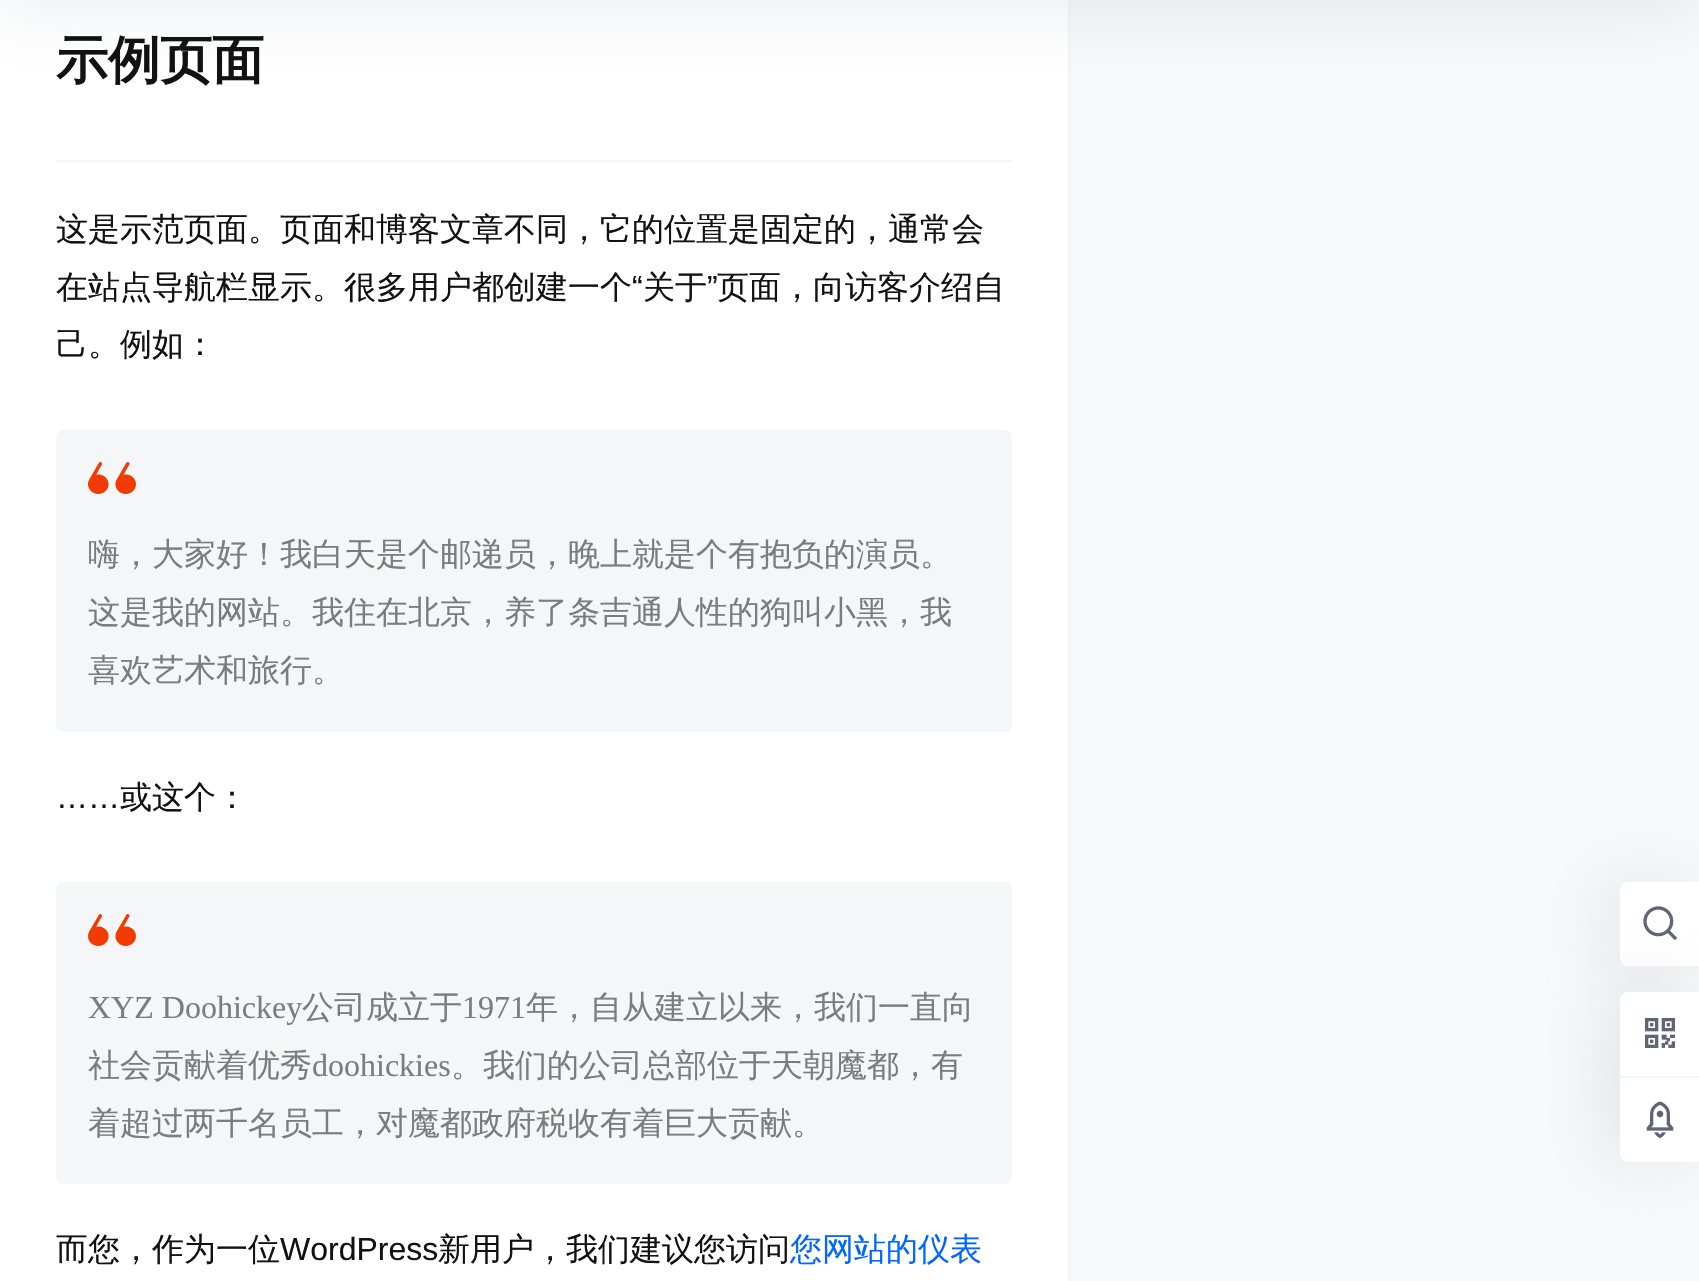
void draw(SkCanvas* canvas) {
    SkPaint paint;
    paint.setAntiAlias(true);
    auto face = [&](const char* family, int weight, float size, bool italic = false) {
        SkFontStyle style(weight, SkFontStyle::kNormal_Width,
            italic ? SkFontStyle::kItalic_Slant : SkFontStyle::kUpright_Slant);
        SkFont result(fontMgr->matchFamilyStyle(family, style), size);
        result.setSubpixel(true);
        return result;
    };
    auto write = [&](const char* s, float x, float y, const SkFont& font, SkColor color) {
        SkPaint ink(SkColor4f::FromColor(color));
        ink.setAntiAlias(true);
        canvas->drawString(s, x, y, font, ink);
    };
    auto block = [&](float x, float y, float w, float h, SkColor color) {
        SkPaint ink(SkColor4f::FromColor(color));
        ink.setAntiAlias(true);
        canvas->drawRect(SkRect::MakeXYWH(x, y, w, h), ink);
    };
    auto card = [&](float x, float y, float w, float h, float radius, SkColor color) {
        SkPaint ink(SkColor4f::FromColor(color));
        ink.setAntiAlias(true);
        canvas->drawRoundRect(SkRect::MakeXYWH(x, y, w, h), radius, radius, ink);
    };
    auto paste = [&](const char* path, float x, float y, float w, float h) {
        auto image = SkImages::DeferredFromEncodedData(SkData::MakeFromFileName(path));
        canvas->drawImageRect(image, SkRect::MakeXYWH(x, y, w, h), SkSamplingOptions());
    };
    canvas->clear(SkColorSetRGB(247, 249, 250));
    paint.setColor(SkColorSetARGB(26, 98, 124, 153));
    paint.setMaskFilter(SkMaskFilter::MakeBlur(kNormal_SkBlurStyle, 2));
    canvas->drawRoundRect(SkRect::MakeXYWH(0, -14, 1068, 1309), 8, 8, paint);
    paint.setMaskFilter(nullptr);
    block(0, 0, 1068, 1281, SK_ColorWHITE);
    paint.setColor(SkColorSetARGB(26, 17, 58, 93));
    paint.setMaskFilter(SkMaskFilter::MakeBlur(kNormal_SkBlurStyle, 40));
    canvas->drawRect(SkRect::MakeXYWH(0, -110, 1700, 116), paint);
    paint.setMaskFilter(nullptr);
    block(56, 160, 956, 2, SkColorSetRGB(245, 246, 247));
    auto kFont1 = face("WenQuanYi Zen Hei", 700, 52);
    write("示例页面", 56, 78, kFont1, SkColorSetRGB(18, 18, 18));
    auto kFont2 = face("WenQuanYi Zen Hei", 500, 32);
    write("这是示范页面。页面和博客文章不同，它的位置是固定的，通常会", 56, 240, kFont2, SkColorSetRGB(18, 18, 18));
    write("在站点导航栏显示。很多用户都创建一个", 56, 298, kFont2, SkColorSetRGB(18, 18, 18));
    auto kFont3 = face("Liberation Sans", 400, 32);
    write("“", 632, 298, kFont3, SkColorSetRGB(18, 18, 18));
    write("关于", 643, 298, kFont2, SkColorSetRGB(18, 18, 18));
    write("”", 707, 298, kFont3, SkColorSetRGB(18, 18, 18));
    write("页面，向访客介绍自", 717, 298, kFont2, SkColorSetRGB(18, 18, 18));
    write("己。例如：", 56, 355, kFont2, SkColorSetRGB(18, 18, 18));
    card(56, 430, 956, 302, 8, SkColorSetRGB(245, 246, 247));
    paste("pic1.png", 88, 462, 48, 32);
    write("嗨，大家好！我白天是个邮递员，晚上就是个有抱负的演员。", 88, 565, kFont2, SkColorSetRGB(121, 124, 128));
    write("这是我的网站。我住在北京，养了条吉通人性的狗叫小黑，我", 88, 623, kFont2, SkColorSetRGB(121, 124, 128));
    write("喜欢艺术和旅行。", 88, 681, kFont2, SkColorSetRGB(121, 124, 128));
    write("……", 56, 808, kFont3, SkColorSetRGB(18, 18, 18));
    write("或这个：", 120, 808, kFont2, SkColorSetRGB(18, 18, 18));
    card(56, 882, 956, 302, 8, SkColorSetRGB(245, 246, 247));
    paste("pic1.png", 88, 914, 48, 32);
    auto kFont4 = face("Liberation Serif", 400, 32);
    write("XYZ Doohickey", 88, 1018, kFont4, SkColorSetRGB(121, 124, 128));
    write("公司成立于", 302, 1018, kFont2, SkColorSetRGB(121, 124, 128));
    write("1971", 462, 1018, kFont4, SkColorSetRGB(121, 124, 128));
    write("年，自从建立以来，我们一直向", 526, 1018, kFont2, SkColorSetRGB(121, 124, 128));
    write("社会贡献着优秀", 88, 1076, kFont2, SkColorSetRGB(121, 124, 128));
    write("doohickies", 312, 1076, kFont4, SkColorSetRGB(121, 124, 128));
    write("。我们的公司总部位于天朝魔都，有", 451, 1076, kFont2, SkColorSetRGB(121, 124, 128));
    write("着超过两千名员工，对魔都政府税收有着巨大贡献。", 88, 1134, kFont2, SkColorSetRGB(121, 124, 128));
    write("而您，作为一位", 56, 1260, kFont2, SkColorSetRGB(18, 18, 18));
    write("WordPress", 280, 1260, kFont3, SkColorSetRGB(18, 18, 18));
    write("新用户，我们建议您访问", 438, 1260, kFont2, SkColorSetRGB(18, 18, 18));
    write("您网站的仪表", 790, 1260, kFont2, SkColorSetRGB(0, 102, 255));
    paint.setColor(SkColorSetARGB(82, 181, 181, 181));
    paint.setMaskFilter(SkMaskFilter::MakeBlur(kNormal_SkBlurStyle, 35));
    canvas->drawRoundRect(SkRect::MakeXYWH(1604, 882, 80, 84), 8, 8, paint);
    paint.setMaskFilter(nullptr);
    paint.setColor(SK_ColorWHITE);
    canvas->drawPath(SkPathBuilder().moveTo(1628, 882).lineTo(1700, 882).lineTo(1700, 966).lineTo(1628, 966).cubicTo(1623.5f, 966, 1620, 962.5f, 1620, 958).lineTo(1620, 890).cubicTo(1620, 885.5f, 1623.5f, 882, 1628, 882).close().detach(), paint);
    paste("pic2.png", 1643, 906, 35, 35);
    paint.setColor(SkColorSetARGB(82, 181, 181, 181));
    paint.setMaskFilter(SkMaskFilter::MakeBlur(kNormal_SkBlurStyle, 35));
    canvas->drawRoundRect(SkRect::MakeXYWH(1604, 992, 80, 170), 8, 8, paint);
    paint.setMaskFilter(nullptr);
    paint.setColor(SK_ColorWHITE);
    canvas->drawPath(SkPathBuilder().moveTo(1628, 992).lineTo(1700, 992).lineTo(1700, 1162).lineTo(1628, 1162).cubicTo(1623.5f, 1162, 1620, 1158.5f, 1620, 1154).lineTo(1620, 1000).cubicTo(1620, 995.5f, 1623.5f, 992, 1628, 992).close().detach(), paint);
    paste("pic3.png", 1645, 1018, 30, 30);
    block(1620, 1076, 79, 2, SkColorSetRGB(245, 246, 247));
    paste("pic4.png", 1646, 1101, 28, 38);
}
